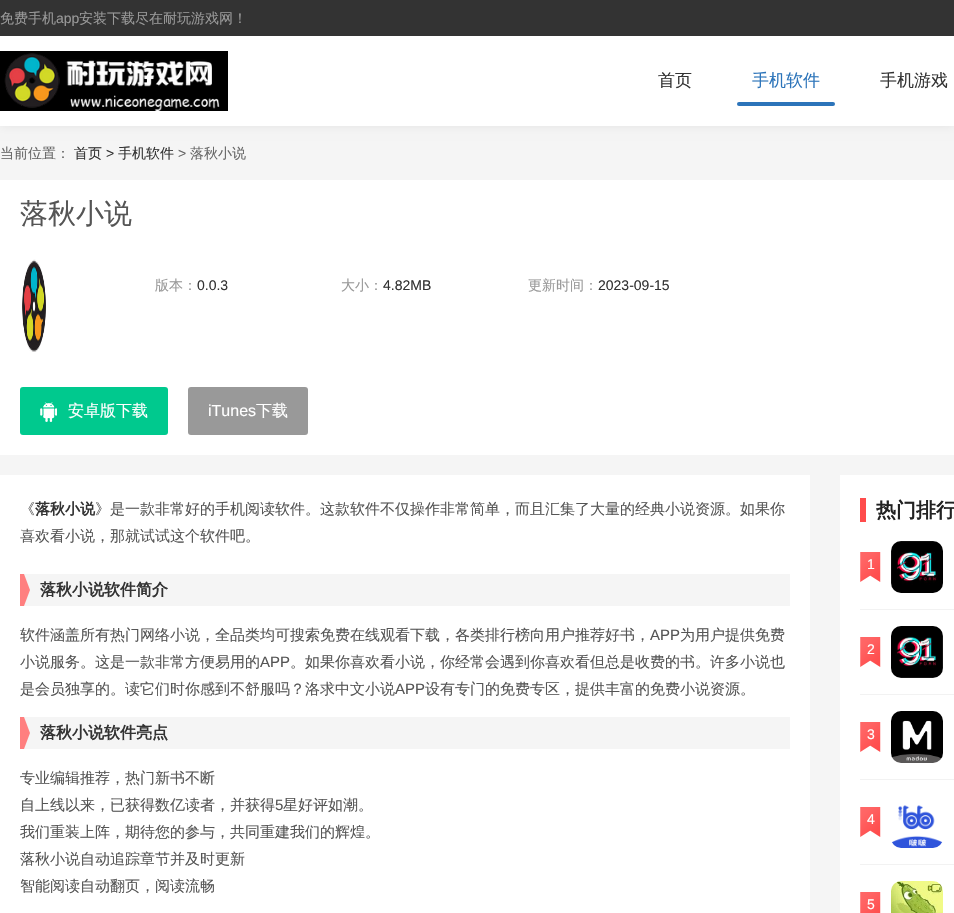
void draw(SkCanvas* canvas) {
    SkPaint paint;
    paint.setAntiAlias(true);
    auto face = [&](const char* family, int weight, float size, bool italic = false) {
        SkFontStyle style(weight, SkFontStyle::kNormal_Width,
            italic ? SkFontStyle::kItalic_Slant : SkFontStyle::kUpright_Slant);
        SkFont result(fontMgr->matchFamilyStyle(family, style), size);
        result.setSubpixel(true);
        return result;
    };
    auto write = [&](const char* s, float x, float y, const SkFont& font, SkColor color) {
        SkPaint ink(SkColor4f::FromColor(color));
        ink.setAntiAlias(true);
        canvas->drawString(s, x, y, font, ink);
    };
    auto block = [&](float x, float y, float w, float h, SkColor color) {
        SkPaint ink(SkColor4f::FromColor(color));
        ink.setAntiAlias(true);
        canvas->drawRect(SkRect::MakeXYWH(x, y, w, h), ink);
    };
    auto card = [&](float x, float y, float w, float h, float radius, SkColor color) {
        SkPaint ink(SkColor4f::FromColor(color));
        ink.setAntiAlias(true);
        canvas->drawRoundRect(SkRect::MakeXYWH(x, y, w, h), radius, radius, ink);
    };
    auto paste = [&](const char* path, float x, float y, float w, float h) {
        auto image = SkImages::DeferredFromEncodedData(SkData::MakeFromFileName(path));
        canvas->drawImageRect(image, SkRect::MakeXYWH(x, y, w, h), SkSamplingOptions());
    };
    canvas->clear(SkColorSetRGB(245, 245, 245));
    paint.setColor(SkColorSetARGB(18, 0, 0, 0));
    paint.setMaskFilter(SkMaskFilter::MakeBlur(kNormal_SkBlurStyle, 5));
    canvas->drawRect(SkRect::MakeXYWH(0, 0, 954, 126), paint);
    paint.setMaskFilter(nullptr);
    block(0, 36, 954, 90, SK_ColorWHITE);
    block(0, 0, 954, 36, SkColorSetRGB(51, 51, 51));
    auto kFont1 = face("WenQuanYi Zen Hei", 500, 14);
    write("免费手机", 0, 23, kFont1, SkColorSetRGB(153, 153, 153));
    auto kFont2 = face("Liberation Sans", 400, 14);
    write("app", 56, 23, kFont2, SkColorSetRGB(153, 153, 153));
    write("安装下载尽在耐玩游戏网！", 79, 23, kFont1, SkColorSetRGB(153, 153, 153));
    block(0, 51, 228, 60, SK_ColorBLACK);
    paste("pic1.png", 4, 53, 216, 58);
    auto kFont3 = face("WenQuanYi Zen Hei", 500, 17);
    write("首页", 658, 86, kFont3, SkColorSetRGB(51, 51, 51));
    write("手机软件", 752, 86, kFont3, SkColorSetRGB(44, 116, 186));
    card(737, 102, 98, 4, 2, SkColorSetRGB(44, 116, 186));
    write("手机游戏", 880, 86, kFont3, SkColorSetRGB(51, 51, 51));
    write("当前位置：", 0, 158, kFont1, SkColorSetRGB(102, 102, 102));
    write("首页", 74, 158, kFont1, SkColorSetRGB(51, 51, 51));
    write(">", 106, 158, kFont2, SkColorSetRGB(51, 51, 51));
    write("手机软件", 118, 158, kFont1, SkColorSetRGB(51, 51, 51));
    write(">", 178, 158, kFont2, SkColorSetRGB(102, 102, 102));
    write("落秋小说", 190, 158, kFont1, SkColorSetRGB(102, 102, 102));
    block(0, 180, 954, 275, SK_ColorWHITE);
    auto kFont4 = face("WenQuanYi Zen Hei", 500, 28);
    write("落秋小说", 20, 223, kFont4, SkColorSetRGB(85, 85, 85));
    paste("pic2.png", 22, 259, 24, 93);
    write("版本：", 155, 290, kFont1, SkColorSetRGB(153, 153, 153));
    write("0.0.3", 197, 290, kFont2, SkColorSetRGB(51, 51, 51));
    write("大小：", 341, 290, kFont1, SkColorSetRGB(153, 153, 153));
    write("4.82MB", 383, 290, kFont2, SkColorSetRGB(51, 51, 51));
    write("更新时间：", 528, 290, kFont1, SkColorSetRGB(153, 153, 153));
    write("2023-09-15", 598, 290, kFont2, SkColorSetRGB(51, 51, 51));
    card(20, 387, 148, 48, 3, SkColorSetRGB(0, 201, 142));
    paste("pic3.png", 40, 402, 17, 20);
    auto kFont5 = face("WenQuanYi Zen Hei", 500, 16);
    write("安卓版下载", 68, 416, kFont5, SK_ColorWHITE);
    card(188, 387, 120, 48, 3, SkColorSetRGB(153, 153, 153));
    auto kFont6 = face("Liberation Sans", 400, 16);
    write("iTunes", 208, 416, kFont6, SK_ColorWHITE);
    write("下载", 256, 416, kFont5, SK_ColorWHITE);
    block(0, 475, 810, 438, SK_ColorWHITE);
    auto kFont7 = face("WenQuanYi Zen Hei", 500, 15);
    write("《", 20, 514, kFont7, SkColorSetRGB(85, 85, 85));
    auto kFont8 = face("WenQuanYi Zen Hei", 700, 15);
    write("落秋小说", 35, 514, kFont8, SkColorSetRGB(51, 51, 51));
    write("》是一款非常好的手机阅读软件。这款软件不仅操作非常简单，而且汇集了大量的经典小说资源。如果你", 95, 514, kFont7, SkColorSetRGB(85, 85, 85));
    write("喜欢看小说，那就试试这个软件吧。", 20, 541, kFont7, SkColorSetRGB(85, 85, 85));
    block(24, 574, 766, 32, SkColorSetRGB(245, 245, 245));
    paste("pic4.png", 20, 574, 10, 32);
    auto kFont9 = face("WenQuanYi Zen Hei", 700, 16);
    write("落秋小说软件简介", 40, 595, kFont9, SkColorSetRGB(51, 51, 51));
    write("软件涵盖所有热门网络小说，全品类均可搜索免费在线观看下载，各类排行榜向用户推荐好书，", 20, 640, kFont7, SkColorSetRGB(85, 85, 85));
    auto kFont10 = face("Liberation Sans", 400, 15);
    write("APP", 650, 640, kFont10, SkColorSetRGB(85, 85, 85));
    write("为用户提供免费", 680, 640, kFont7, SkColorSetRGB(85, 85, 85));
    write("小说服务。这是一款非常方便易用的", 20, 667, kFont7, SkColorSetRGB(85, 85, 85));
    write("APP", 260, 667, kFont10, SkColorSetRGB(85, 85, 85));
    write("。如果你喜欢看小说，你经常会遇到你喜欢看但总是收费的书。许多小说也", 290, 667, kFont7, SkColorSetRGB(85, 85, 85));
    write("是会员独享的。读它们时你感到不舒服吗？洛求中文小说", 20, 694, kFont7, SkColorSetRGB(85, 85, 85));
    write("APP", 395, 694, kFont10, SkColorSetRGB(85, 85, 85));
    write("设有专门的免费专区，提供丰富的免费小说资源。", 425, 694, kFont7, SkColorSetRGB(85, 85, 85));
    block(24, 717, 766, 32, SkColorSetRGB(245, 245, 245));
    paste("pic4.png", 20, 717, 10, 32);
    write("落秋小说软件亮点", 40, 738, kFont9, SkColorSetRGB(51, 51, 51));
    write("专业编辑推荐，热门新书不断", 20, 783, kFont7, SkColorSetRGB(85, 85, 85));
    write("自上线以来，已获得数亿读者，并获得", 20, 810, kFont7, SkColorSetRGB(85, 85, 85));
    write("5", 275, 810, kFont10, SkColorSetRGB(85, 85, 85));
    write("星好评如潮。", 283, 810, kFont7, SkColorSetRGB(85, 85, 85));
    write("我们重装上阵，期待您的参与，共同重建我们的辉煌。", 20, 837, kFont7, SkColorSetRGB(85, 85, 85));
    write("落秋小说自动追踪章节并及时更新", 20, 864, kFont7, SkColorSetRGB(85, 85, 85));
    write("智能阅读自动翻页，阅读流畅", 20, 891, kFont7, SkColorSetRGB(85, 85, 85));
    block(840, 475, 114, 438, SK_ColorWHITE);
    block(860, 498, 6, 24, SkColorSetRGB(255, 76, 76));
    auto kFont11 = face("WenQuanYi Zen Hei", 700, 20);
    write("热门排行", 876, 517, kFont11, SkColorSetRGB(34, 34, 34));
    block(860, 609, 94, 1, SkColorSetRGB(242, 242, 242));
    paste("pic5.png", 860, 552, 21, 30);
    write("1", 867, 569, kFont2, SK_ColorWHITE);
    paste("pic6.png", 891, 541, 52, 52);
    block(860, 694, 94, 1, SkColorSetRGB(242, 242, 242));
    paste("pic5.png", 860, 637, 21, 30);
    write("2", 867, 654, kFont2, SK_ColorWHITE);
    paste("pic7.png", 891, 626, 52, 52);
    block(860, 779, 94, 1, SkColorSetRGB(242, 242, 242));
    paste("pic5.png", 860, 722, 21, 30);
    write("3", 867, 739, kFont2, SK_ColorWHITE);
    paste("pic8.png", 891, 711, 52, 52);
    block(860, 864, 94, 1, SkColorSetRGB(242, 242, 242));
    paste("pic5.png", 860, 807, 21, 30);
    write("4", 867, 824, kFont2, SK_ColorWHITE);
    paste("pic9.png", 891, 805, 52, 43);
    paste("pic10.png", 860, 892, 21, 21);
    write("5", 867, 909, kFont2, SK_ColorWHITE);
    paste("pic11.png", 891, 881, 52, 32);
}
